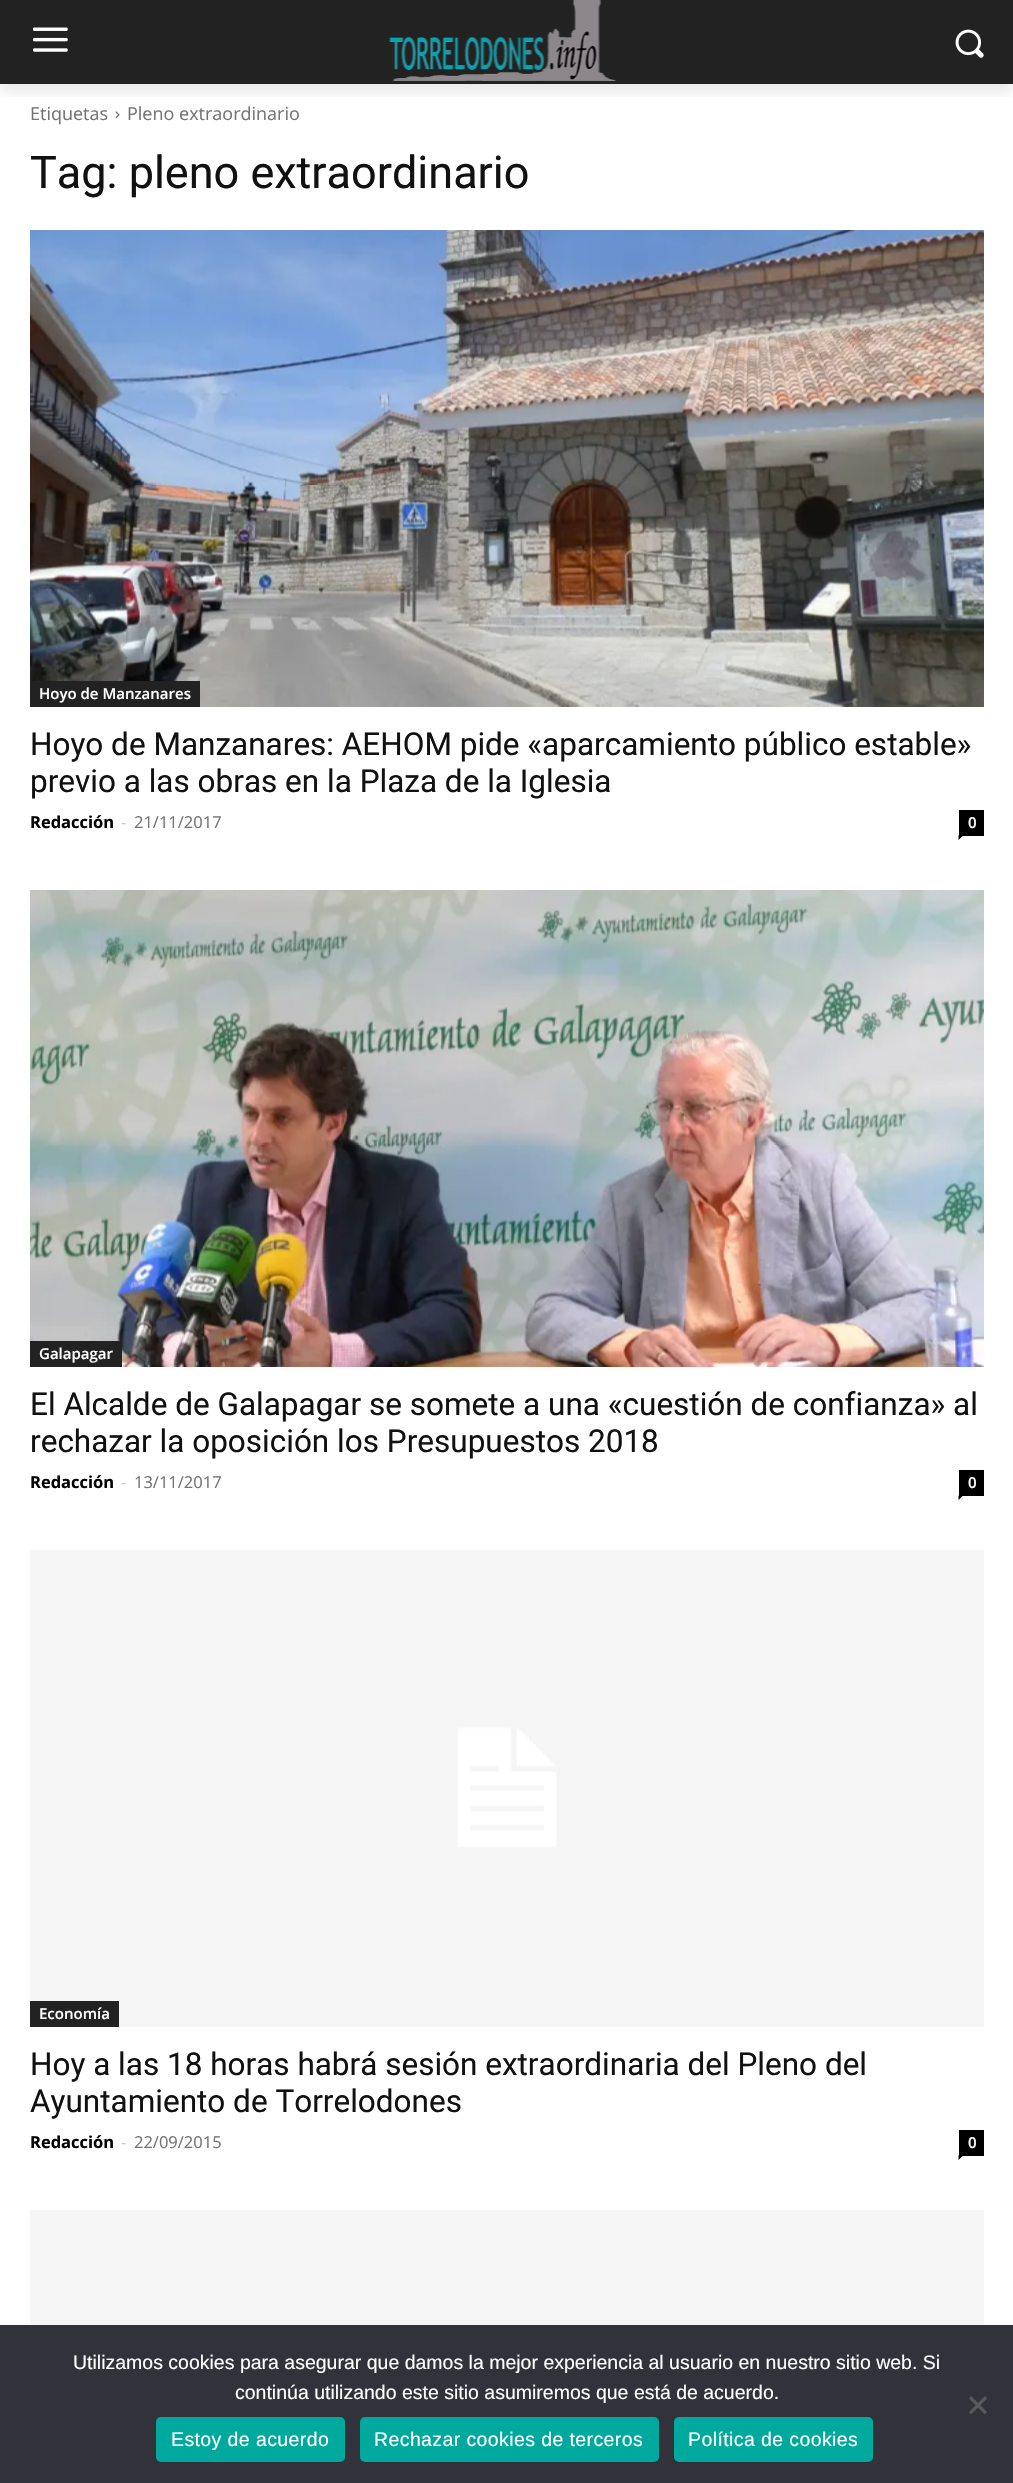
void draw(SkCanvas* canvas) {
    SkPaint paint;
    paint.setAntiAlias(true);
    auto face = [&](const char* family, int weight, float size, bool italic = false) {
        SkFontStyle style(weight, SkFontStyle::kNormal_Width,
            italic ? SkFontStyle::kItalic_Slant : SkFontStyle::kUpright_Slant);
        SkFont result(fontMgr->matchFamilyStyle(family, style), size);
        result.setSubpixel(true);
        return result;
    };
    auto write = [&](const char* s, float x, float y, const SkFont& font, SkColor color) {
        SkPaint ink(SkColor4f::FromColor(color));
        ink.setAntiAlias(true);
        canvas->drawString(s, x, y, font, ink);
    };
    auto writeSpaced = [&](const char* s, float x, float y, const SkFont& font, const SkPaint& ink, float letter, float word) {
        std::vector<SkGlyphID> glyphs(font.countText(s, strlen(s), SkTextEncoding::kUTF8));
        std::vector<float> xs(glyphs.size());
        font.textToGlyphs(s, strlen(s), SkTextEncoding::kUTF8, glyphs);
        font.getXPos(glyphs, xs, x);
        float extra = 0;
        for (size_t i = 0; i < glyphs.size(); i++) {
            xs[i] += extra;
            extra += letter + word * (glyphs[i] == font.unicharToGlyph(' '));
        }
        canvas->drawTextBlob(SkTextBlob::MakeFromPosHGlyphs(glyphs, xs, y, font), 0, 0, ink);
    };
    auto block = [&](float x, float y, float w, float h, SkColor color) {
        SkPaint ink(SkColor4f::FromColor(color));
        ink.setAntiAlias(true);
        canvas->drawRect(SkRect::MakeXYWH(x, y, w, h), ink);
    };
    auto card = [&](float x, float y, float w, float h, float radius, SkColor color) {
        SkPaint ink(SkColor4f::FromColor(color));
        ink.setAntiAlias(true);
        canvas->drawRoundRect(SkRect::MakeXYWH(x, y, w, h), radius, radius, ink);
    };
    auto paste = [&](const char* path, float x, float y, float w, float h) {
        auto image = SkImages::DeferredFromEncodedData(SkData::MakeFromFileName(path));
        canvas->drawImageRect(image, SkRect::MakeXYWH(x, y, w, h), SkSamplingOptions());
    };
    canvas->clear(SK_ColorWHITE);
    block(0, 0, 1013, 84, SkColorSetRGB(34, 34, 34));
    paste("pic1.png", 33, 27, 35, 25);
    paste("pic2.png", 389, 0, 227, 81);
    paste("pic3.png", 955, 29, 29, 29);
    paste("pic4.png", 115, 111, 5, 8);
    canvas->save();
    canvas->clipRect(SkRect::MakeXYWH(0, 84, 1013, 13));
    paint.setColor(SkColorSetARGB(20, 0, 0, 0));
    paint.setMaskFilter(SkMaskFilter::MakeBlur(kNormal_SkBlurStyle, 6));
    canvas->drawRect(SkRect::MakeXYWH(0, 9, 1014, 84), paint);
    paint.setMaskFilter(nullptr);
    canvas->restore();
    auto kFont1 = face("Open Sans", 400, 18);
    write("Etiquetas", 30, 120, kFont1, SkColorSetRGB(116, 116, 116));
    write("Pleno extraordinario", 127, 120, kFont1, SkColorSetRGB(116, 116, 116));
    auto kFont2 = face("Roboto", 400, 45);
    write("Tag: pleno extraordinario", 30, 188, kFont2, SkColorSetRGB(17, 17, 17));
    paste("pic5.png", 30, 230, 954, 477);
    block(30, 681, 170, 26, SkColorSetRGB(34, 34, 34));
    auto kFont3 = face("Open Sans", 600, 15);
    write("Hoyo de Manzanares", 39, 699, kFont3, SK_ColorWHITE);
    auto kFont4 = face("Roboto", 400, 31.5f);
    write("Hoyo de Manzanares: AEHOM pide «aparcamiento público estable»", 30, 755, kFont4, SkColorSetRGB(17, 17, 17));
    write("previo a las obras en la Plaza de la Iglesia", 30, 792, kFont4, SkColorSetRGB(17, 17, 17));
    auto kFont5 = face("Open Sans", 700, 16.5f);
    write("Redacción", 30, 828, kFont5, SK_ColorBLACK);
    auto kFont6 = face("Open Sans", 400, 16.5f);
    write("-", 121, 828, kFont6, SkColorSetRGB(204, 204, 204));
    write("21/11/2017", 134, 828, kFont6, SkColorSetRGB(116, 116, 116));
    block(959, 810, 25, 26, SK_ColorBLACK);
    write("0", 968, 828, kFont3, SK_ColorWHITE);
    paint.setColor(SK_ColorBLACK);
    canvas->drawPath(SkPathBuilder().moveTo(958.5f, 835.5f).lineTo(963, 835.5f).lineTo(958.5f, 840).close().detach(), paint);
    paste("pic6.png", 30, 890, 954, 477);
    block(30, 1341, 92, 26, SkColorSetRGB(34, 34, 34));
    write("Galapagar", 39, 1359, kFont3, SK_ColorWHITE);
    write("El Alcalde de Galapagar se somete a una «cuestión de confianza» al", 30, 1415, kFont4, SkColorSetRGB(17, 17, 17));
    write("rechazar la oposición los Presupuestos 2018", 30, 1452, kFont4, SkColorSetRGB(17, 17, 17));
    write("Redacción", 30, 1488, kFont5, SK_ColorBLACK);
    write("-", 121, 1488, kFont6, SkColorSetRGB(204, 204, 204));
    write("13/11/2017", 134, 1488, kFont6, SkColorSetRGB(116, 116, 116));
    block(959, 1470, 25, 26, SK_ColorBLACK);
    write("0", 968, 1488, kFont3, SK_ColorWHITE);
    canvas->drawPath(SkPathBuilder().moveTo(958.5f, 1495.5f).lineTo(963, 1495.5f).lineTo(958.5f, 1500).close().detach(), paint);
    paste("pic7.png", 30, 1550, 954, 477);
    block(30, 2001, 89, 26, SkColorSetRGB(34, 34, 34));
    write("Economía", 39, 2019, kFont3, SK_ColorWHITE);
    write("Hoy a las 18 horas habrá sesión extraordinaria del Pleno del", 30, 2075, kFont4, SkColorSetRGB(17, 17, 17));
    write("Ayuntamiento de Torrelodones", 30, 2112, kFont4, SkColorSetRGB(17, 17, 17));
    write("Redacción", 30, 2148, kFont5, SK_ColorBLACK);
    write("-", 121, 2148, kFont6, SkColorSetRGB(204, 204, 204));
    write("22/09/2015", 134, 2148, kFont6, SkColorSetRGB(116, 116, 116));
    block(959, 2130, 25, 26, SK_ColorBLACK);
    write("0", 968, 2148, kFont3, SK_ColorWHITE);
    canvas->drawPath(SkPathBuilder().moveTo(958.5f, 2155.5f).lineTo(963, 2155.5f).lineTo(958.5f, 2160).close().detach(), paint);
    paste("pic8.png", 30, 2210, 954, 115);
    block(0, 2325, 1013, 158, SkColorSetRGB(50, 50, 58));
    auto kFont7 = face("Liberation Sans", 400, 19.5f);
    write("Utilizamos cookies para asegurar que damos la mejor experiencia al usuario en nuestro sitio web. Si", 73, 2369, kFont7, SK_ColorWHITE);
    write("continúa utilizando este sitio asumiremos que está de acuerdo.", 235, 2399, kFont7, SK_ColorWHITE);
    paint.setColor(SkColorSetRGB(89, 89, 93));
    canvas->drawPath(SkPathBuilder().moveTo(985, 2396).lineTo(987, 2398.5f).lineTo(971, 2414.5f).lineTo(969, 2412).close().detach(), paint);
    canvas->drawPath(SkPathBuilder().moveTo(969, 2398.5f).lineTo(971, 2396).lineTo(987, 2412).lineTo(985, 2414.5f).close().detach(), paint);
    card(156, 2417, 189, 45, 5, SkColorSetRGB(0, 169, 157));
    paint.setColor(SK_ColorWHITE);
    writeSpaced("Estoy de acuerdo", 171, 2446, kFont7, paint, 0.4f, 0);
    card(360, 2417, 299, 45, 5, SkColorSetRGB(0, 169, 157));
    writeSpaced("Rechazar cookies de terceros", 374, 2446, kFont7, paint, 0.4f, 0);
    card(674, 2417, 199, 45, 5, SkColorSetRGB(0, 169, 157));
    writeSpaced("Política de cookies", 688, 2446, kFont7, paint, 0.4f, 0);
}
